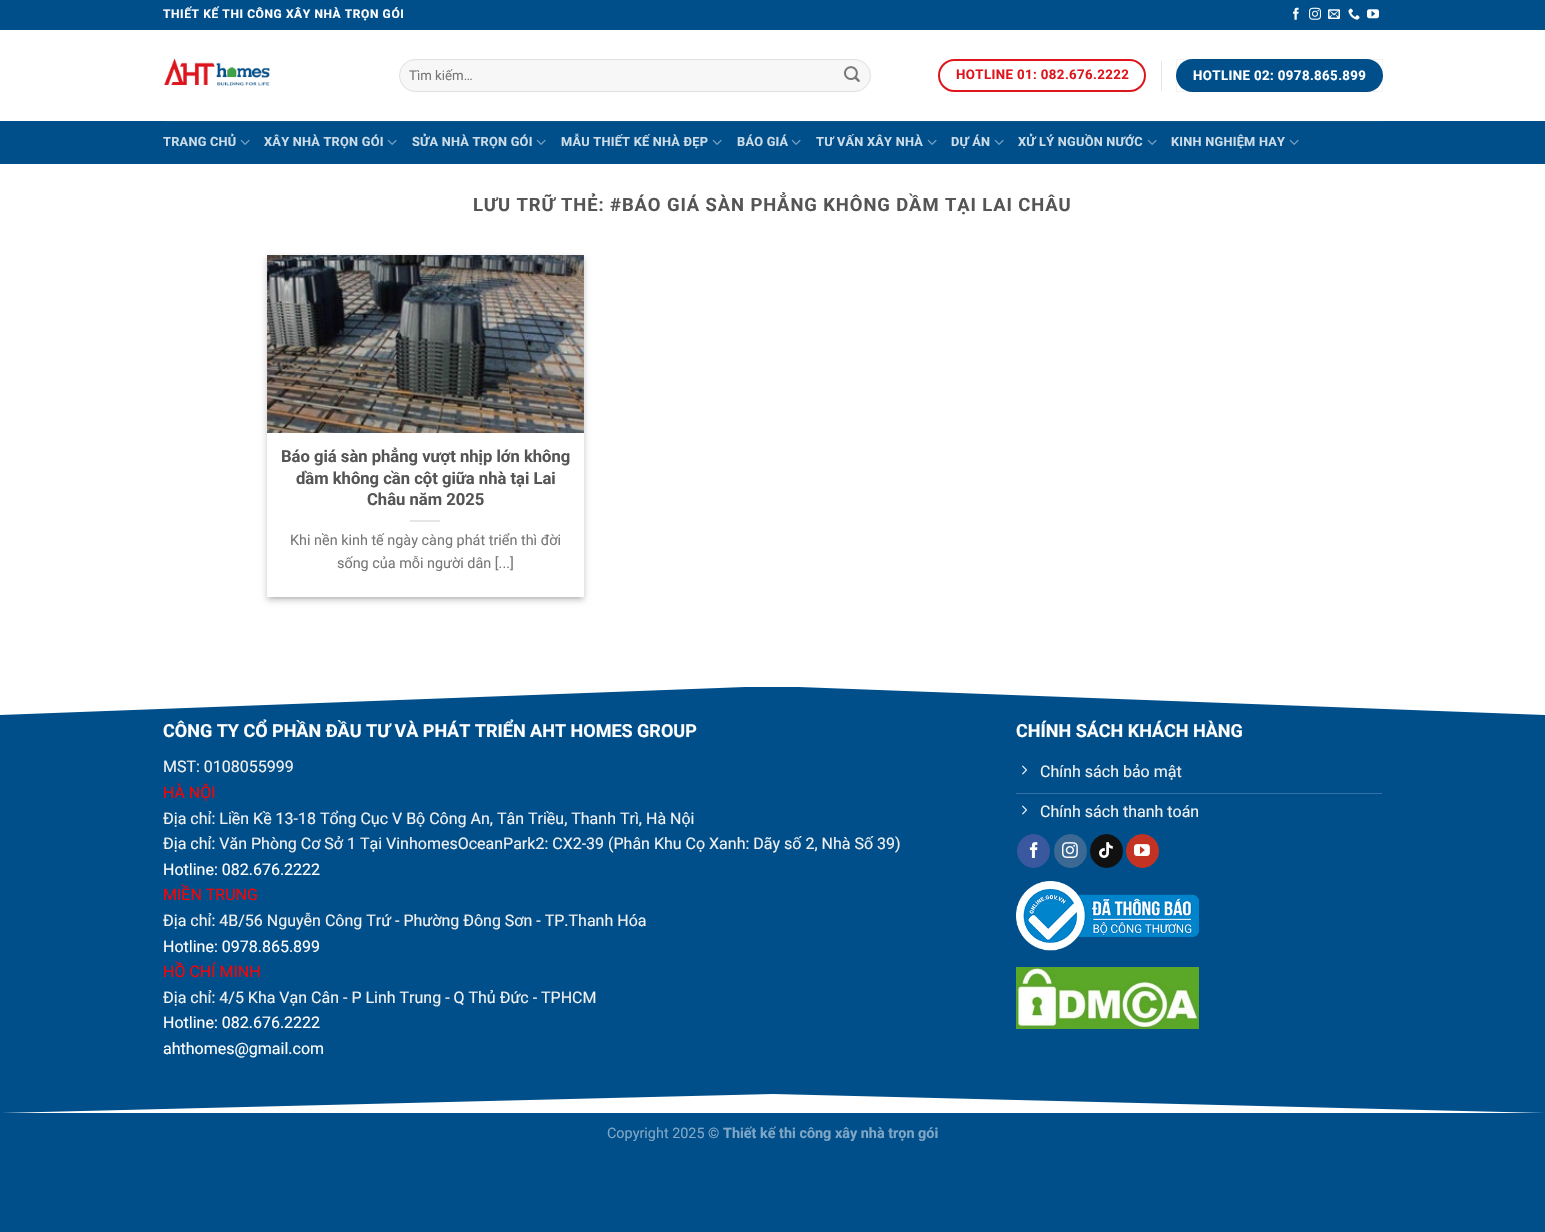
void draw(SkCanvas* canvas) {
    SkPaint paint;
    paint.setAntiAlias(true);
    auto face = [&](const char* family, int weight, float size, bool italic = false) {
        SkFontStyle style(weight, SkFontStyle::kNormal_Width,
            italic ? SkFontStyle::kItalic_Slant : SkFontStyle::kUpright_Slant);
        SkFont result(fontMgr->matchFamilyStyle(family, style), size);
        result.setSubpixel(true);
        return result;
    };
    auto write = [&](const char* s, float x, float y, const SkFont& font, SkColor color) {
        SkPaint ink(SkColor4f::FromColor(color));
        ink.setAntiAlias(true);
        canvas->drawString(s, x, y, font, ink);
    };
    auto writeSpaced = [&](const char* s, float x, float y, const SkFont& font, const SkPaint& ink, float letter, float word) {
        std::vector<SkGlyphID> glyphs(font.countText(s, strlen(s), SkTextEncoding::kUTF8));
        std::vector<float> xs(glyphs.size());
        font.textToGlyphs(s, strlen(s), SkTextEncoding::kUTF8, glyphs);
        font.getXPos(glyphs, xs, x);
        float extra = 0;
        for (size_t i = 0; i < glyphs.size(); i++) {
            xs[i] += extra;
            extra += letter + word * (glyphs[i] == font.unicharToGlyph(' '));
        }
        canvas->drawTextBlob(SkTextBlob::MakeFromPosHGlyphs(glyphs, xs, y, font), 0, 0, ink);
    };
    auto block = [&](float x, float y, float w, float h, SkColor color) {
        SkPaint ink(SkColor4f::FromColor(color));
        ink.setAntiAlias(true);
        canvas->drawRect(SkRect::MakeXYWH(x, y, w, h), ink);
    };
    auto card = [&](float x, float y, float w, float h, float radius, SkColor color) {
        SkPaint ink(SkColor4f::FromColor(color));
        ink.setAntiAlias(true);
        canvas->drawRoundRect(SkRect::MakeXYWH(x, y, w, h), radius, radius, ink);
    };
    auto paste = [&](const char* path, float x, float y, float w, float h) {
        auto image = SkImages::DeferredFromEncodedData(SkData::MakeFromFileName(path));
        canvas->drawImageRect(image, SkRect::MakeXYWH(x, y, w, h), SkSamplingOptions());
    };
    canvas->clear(SkColorSetRGB(0, 79, 139));
    block(0, 30, 1545, 657, SK_ColorWHITE);
    auto kFont1 = face("Roboto", 700, 12);
    paint.setColor(SK_ColorWHITE);
    writeSpaced("THIẾT KẾ THI CÔNG XÂY NHÀ TRỌN GÓI", 163, 18, kFont1, paint, 0.6f, 0);
    paste("pic1.png", 1293, 7, 6, 13);
    paste("pic2.png", 1309, 7, 12, 13);
    paste("pic3.png", 1328, 9, 12, 10);
    paste("pic4.png", 1348, 8, 12, 12);
    paste("pic5.png", 1367, 9, 12, 10);
    paste("pic6.png", 163, 58, 107, 28);
    card(399, 59, 472, 33, 16.5f, SkColorSetRGB(247, 247, 247));
    paint.setStyle(SkPaint::kStroke_Style);
    paint.setStrokeWidth(1);
    paint.setColor(SkColorSetARGB(23, 0, 0, 0));
    canvas->drawRoundRect(SkRect::MakeXYWH(399.5f, 59.5f, 471, 32), 16, 16, paint);
    auto kFont2 = face("Roboto", 400, 13.25f);
    write("Tìm kiếm…", 409, 80, kFont2, SkColorSetRGB(119, 119, 119));
    paste("pic7.png", 844, 66, 16, 16);
    paint.setStrokeWidth(2);
    paint.setColor(SkColorSetRGB(222, 21, 29));
    canvas->drawRoundRect(SkRect::MakeXYWH(939, 60, 206, 31), 15.5f, 15.5f, paint);
    auto kFont3 = face("Roboto", 700, 13.25f);
    paint.setStyle(SkPaint::kFill_Style);
    writeSpaced("HOTLINE 01: 082.676.2222", 956, 79, kFont3, paint, 0.4f, 0);
    block(1161, 61, 1, 30, SkColorSetRGB(230, 230, 230));
    card(1176, 59, 207, 33, 16.5f, SkColorSetRGB(0, 79, 139));
    paint.setStyle(SkPaint::kStroke_Style);
    paint.setStrokeWidth(1);
    paint.setColor(SkColorSetARGB(13, 0, 0, 0));
    canvas->drawRect(SkRect::MakeXYWH(1176.5f, 59.5f, 206, 32), paint);
    paint.setStyle(SkPaint::kFill_Style);
    paint.setColor(SK_ColorWHITE);
    writeSpaced("HOTLINE 02: 0978.865.899", 1193, 80, kFont3, paint, 0.4f, 0);
    block(0, 121, 1545, 43, SkColorSetRGB(0, 79, 139));
    block(163, 121, 1220, 1, SkColorSetRGB(12, 83, 137));
    auto kFont4 = face("Roboto", 700, 12.75f);
    paint.setColor(SkColorSetRGB(204, 220, 232));
    writeSpaced("TRANG CHỦ", 163, 146, kFont4, paint, 0.25f, 0);
    paste("pic8.png", 240, 139, 10, 6);
    writeSpaced("XÂY NHÀ TRỌN GÓI", 264, 146, kFont4, paint, 0.25f, 0);
    paste("pic8.png", 387, 139, 10, 6);
    writeSpaced("SỬA NHÀ TRỌN GÓI", 412, 146, kFont4, paint, 0.25f, 0);
    paste("pic8.png", 536, 139, 10, 6);
    writeSpaced("MẪU THIẾT KẾ NHÀ ĐẸP", 561, 146, kFont4, paint, 0.25f, 0);
    paste("pic8.png", 712, 139, 10, 6);
    writeSpaced("BÁO GIÁ", 737, 146, kFont4, paint, 0.25f, 0);
    paste("pic8.png", 791, 139, 10, 6);
    writeSpaced("TƯ VẤN XÂY NHÀ", 816, 146, kFont4, paint, 0.25f, 0);
    paste("pic8.png", 927, 139, 10, 6);
    writeSpaced("DỰ ÁN", 951, 146, kFont4, paint, 0.25f, 0);
    paste("pic8.png", 994, 139, 10, 6);
    writeSpaced("XỬ LÝ NGUỒN NƯỚC", 1018, 146, kFont4, paint, 0.25f, 0);
    paste("pic8.png", 1147, 139, 10, 6);
    writeSpaced("KINH NGHIỆM HAY", 1171, 146, kFont4, paint, 0.25f, 0);
    paste("pic8.png", 1289, 139, 10, 6);
    auto kFont5 = face("Roboto", 700, 18.4f);
    paint.setColor(SkColorSetRGB(85, 85, 85));
    writeSpaced("LƯU TRỮ THẺ: #BÁO GIÁ SÀN PHẲNG KHÔNG DẦM TẠI LAI CHÂU", 473, 211, kFont5, paint, 0.92f, 0);
    canvas->save();
    canvas->clipPath(SkPathBuilder(SkPathFillType::kEvenOdd).moveTo(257, 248).lineTo(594, 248).lineTo(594, 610).lineTo(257, 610).close().moveTo(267, 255).lineTo(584, 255).lineTo(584, 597).lineTo(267, 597).close().detach(), true);
    paint.setColor(SkColorSetARGB(59, 0, 0, 0));
    paint.setMaskFilter(SkMaskFilter::MakeBlur(kNormal_SkBlurStyle, 3));
    canvas->drawRect(SkRect::MakeXYWH(267, 258, 317, 342), paint);
    paint.setMaskFilter(nullptr);
    canvas->restore();
    canvas->save();
    canvas->clipRect(SkRect::MakeXYWH(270, 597, 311, 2));
    paint.setColor(SkColorSetARGB(41, 0, 0, 0));
    paint.setMaskFilter(SkMaskFilter::MakeBlur(kNormal_SkBlurStyle, 3));
    canvas->drawRect(SkRect::MakeXYWH(271, 262, 309, 334), paint);
    paint.setMaskFilter(nullptr);
    canvas->restore();
    paste("pic9.png", 267, 255, 317, 178);
    auto kFont6 = face("Roboto", 700, 16.6f);
    write("Báo giá sàn phẳng vượt nhịp lớn không", 281, 462, kFont6, SkColorSetRGB(85, 85, 85));
    write("dầm không cần cột giữa nhà tại Lai", 296, 484, kFont6, SkColorSetRGB(85, 85, 85));
    write("Châu năm 2025", 367, 505, kFont6, SkColorSetRGB(85, 85, 85));
    block(410, 520, 30, 2, SkColorSetRGB(230, 230, 230));
    auto kFont7 = face("Roboto", 400, 14.4f);
    write("Khi nền kinh tế ngày càng phát triển thì đời", 290, 545, kFont7, SkColorSetRGB(119, 119, 119));
    write("sống của mỗi người dân [...]", 337, 568, kFont7, SkColorSetRGB(119, 119, 119));
    canvas->save();
    canvas->clipRect(SkRect::MakeXYWH(0, 686, 1545, 30));
    paint.setColor(SK_ColorWHITE);
    canvas->drawPath(SkPathBuilder().moveTo(772, 686).lineTo(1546, 715).lineTo(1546, 685).lineTo(-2, 685).lineTo(-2, 715).close().detach(), paint);
    canvas->restore();
    auto kFont8 = face("Roboto", 700, 18);
    write("CÔNG TY CỔ PHẦN ĐẦU TƯ VÀ PHÁT TRIỂN AHT HOMES GROUP", 163, 737, kFont8, SK_ColorWHITE);
    auto kFont9 = face("Roboto", 400, 16);
    write("MST: 0108055999", 163, 772, kFont9, SkColorSetRGB(241, 241, 241));
    write("HÀ NỘI", 163, 798, kFont9, SkColorSetRGB(255, 0, 0));
    write("Địa chỉ: Liền Kề 13-18 Tổng Cục V Bộ Công An, Tân Triều, Thanh Trì, Hà Nội", 163, 824, kFont9, SkColorSetRGB(241, 241, 241));
    write("Địa chỉ: Văn Phòng Cơ Sở 1 Tại VinhomesOceanPark2: CX2-39 (Phân Khu Cọ Xanh: Dãy số 2, Nhà Số 39)", 163, 849, kFont9, SkColorSetRGB(241, 241, 241));
    write("Hotline: 082.676.2222", 163, 875, kFont9, SK_ColorWHITE);
    write("MIỀN TRUNG", 163, 900, kFont9, SkColorSetRGB(255, 0, 0));
    write("Địa chỉ: 4B/56 Nguyễn Công Trứ - Phường Đông Sơn - TP.Thanh Hóa", 163, 926, kFont9, SkColorSetRGB(241, 241, 241));
    write("Hotline: 0978.865.899", 163, 952, kFont9, SK_ColorWHITE);
    write("HỒ CHÍ MINH", 163, 977, kFont9, SkColorSetRGB(255, 0, 0));
    write("Địa chỉ: 4/5 Kha Vạn Cân - P Linh Trung - Q Thủ Đức - TPHCM", 163, 1003, kFont9, SkColorSetRGB(241, 241, 241));
    write("Hotline: 082.676.2222", 163, 1028, kFont9, SK_ColorWHITE);
    write("ahthomes@gmail.com", 163, 1054, kFont9, SK_ColorWHITE);
    write("CHÍNH SÁCH KHÁCH HÀNG", 1016, 737, kFont8, SK_ColorWHITE);
    block(1016, 793, 366, 1, SkColorSetRGB(51, 114, 162));
    paste("pic10.png", 1022, 765, 6, 10);
    write("Chính sách bảo mật", 1040, 777, kFont9, SkColorSetRGB(241, 241, 241));
    paste("pic10.png", 1022, 805, 6, 10);
    write("Chính sách thanh toán", 1040, 817, kFont9, SkColorSetRGB(241, 241, 241));
    paint.setColor(SkColorSetRGB(58, 88, 157));
    canvas->drawRoundRect(SkRect::MakeXYWH(1017.5f, 834.5f, 32, 33), 16, 16, paint);
    paint.setStyle(SkPaint::kStroke_Style);
    canvas->drawRoundRect(SkRect::MakeXYWH(1017.5f, 834.5f, 32, 33), 16, 16, paint);
    paste("pic11.png", 1029, 842, 9, 16);
    paint.setStyle(SkPaint::kFill_Style);
    paint.setColor(SkColorSetRGB(59, 105, 148));
    canvas->drawRoundRect(SkRect::MakeXYWH(1054.5f, 834.5f, 32, 33), 16, 16, paint);
    paint.setStyle(SkPaint::kStroke_Style);
    canvas->drawRoundRect(SkRect::MakeXYWH(1054.5f, 834.5f, 32, 33), 16, 16, paint);
    paste("pic12.png", 1062, 842, 16, 16);
    paint.setStyle(SkPaint::kFill_Style);
    paint.setColor(SkColorSetRGB(17, 17, 17));
    canvas->drawRoundRect(SkRect::MakeXYWH(1090.5f, 834.5f, 32, 33), 16, 16, paint);
    paint.setStyle(SkPaint::kStroke_Style);
    canvas->drawRoundRect(SkRect::MakeXYWH(1090.5f, 834.5f, 32, 33), 16, 16, paint);
    paste("pic13.png", 1099, 842, 14, 16);
    paint.setStyle(SkPaint::kFill_Style);
    paint.setColor(SkColorSetRGB(195, 50, 35));
    canvas->drawRoundRect(SkRect::MakeXYWH(1126.5f, 834.5f, 32, 33), 16, 16, paint);
    paint.setStyle(SkPaint::kStroke_Style);
    canvas->drawRoundRect(SkRect::MakeXYWH(1126.5f, 834.5f, 32, 33), 16, 16, paint);
    paste("pic14.png", 1134, 844, 16, 12);
    paste("pic15.png", 1016, 881, 183, 70);
    paste("pic16.png", 1016, 967, 183, 62);
    canvas->save();
    canvas->clipRect(SkRect::MakeXYWH(0, 1093, 1545, 20));
    paint.setStyle(SkPaint::kFill_Style);
    paint.setColor(SK_ColorWHITE);
    canvas->drawPath(SkPathBuilder().moveTo(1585, 1114).lineTo(-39, 1114).lineTo(773, 1094).close().detach(), paint);
    canvas->restore();
    write("Copyright 2025 ©", 607, 1138, kFont7, SkColorSetRGB(128, 167, 197));
    auto kFont10 = face("Roboto", 700, 14.4f);
    write("Thiết kế thi công xây nhà trọn gói", 723, 1138, kFont10, SkColorSetRGB(128, 167, 197));
}
